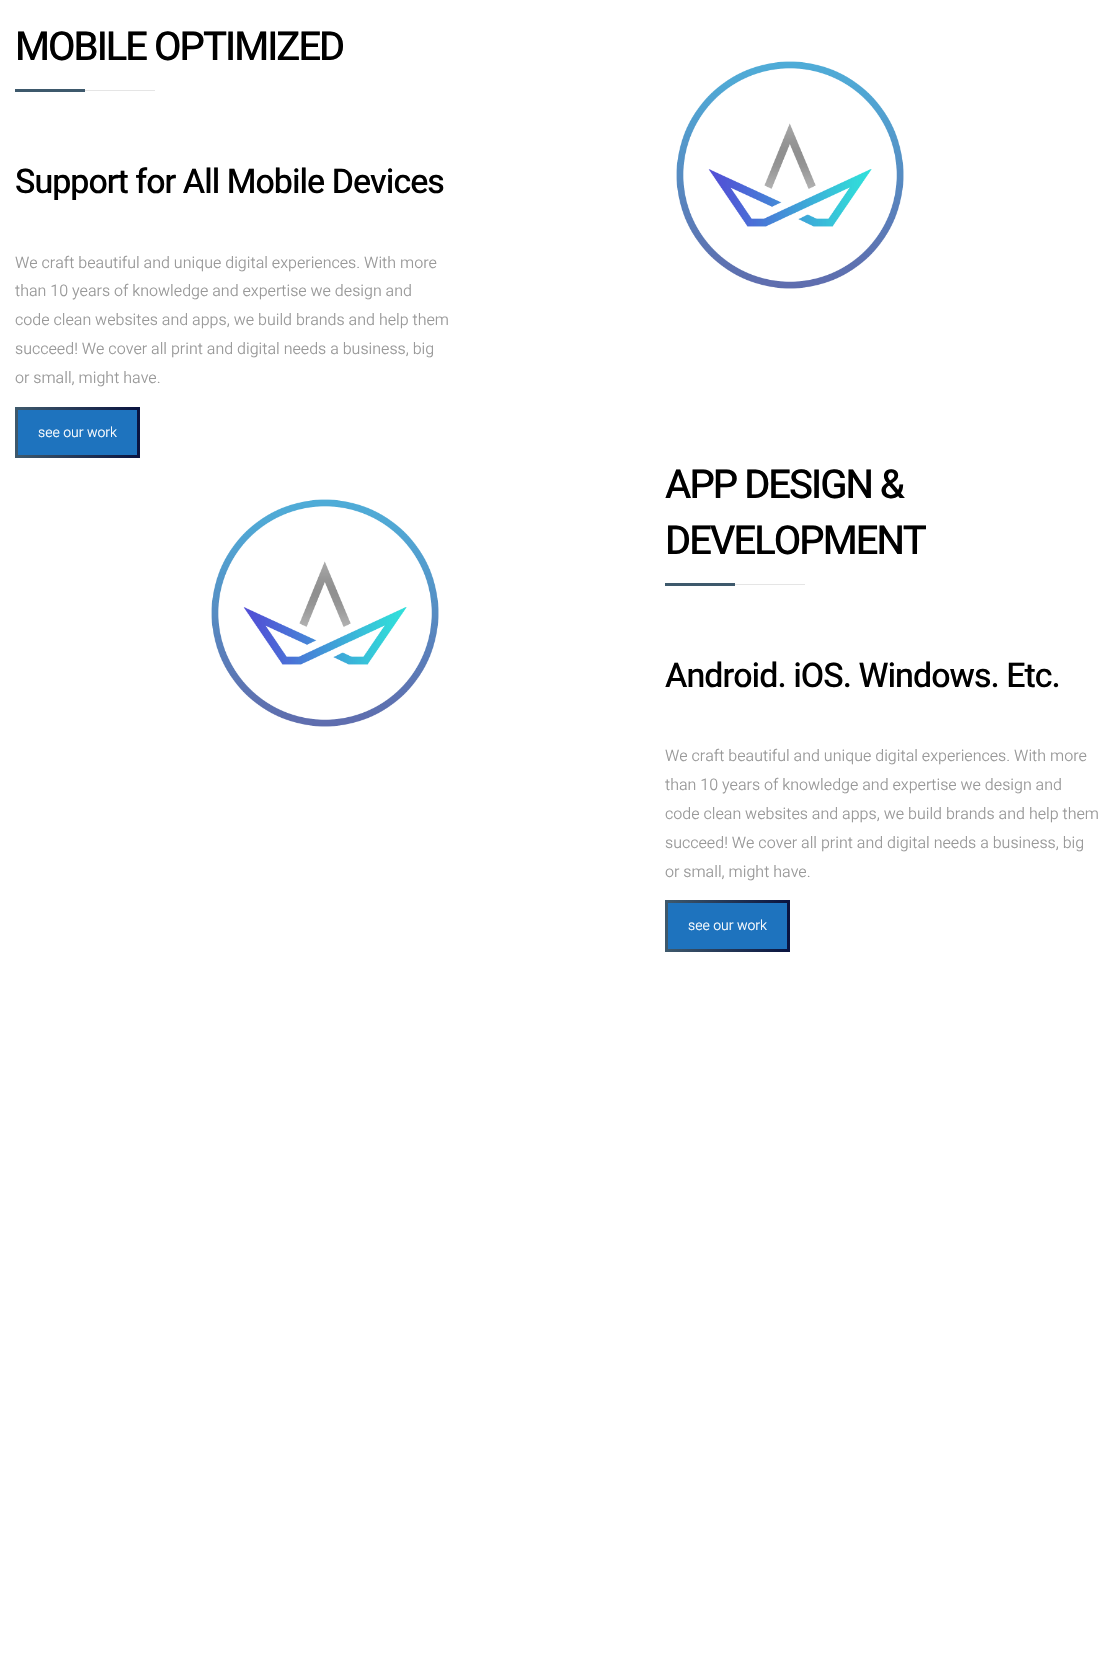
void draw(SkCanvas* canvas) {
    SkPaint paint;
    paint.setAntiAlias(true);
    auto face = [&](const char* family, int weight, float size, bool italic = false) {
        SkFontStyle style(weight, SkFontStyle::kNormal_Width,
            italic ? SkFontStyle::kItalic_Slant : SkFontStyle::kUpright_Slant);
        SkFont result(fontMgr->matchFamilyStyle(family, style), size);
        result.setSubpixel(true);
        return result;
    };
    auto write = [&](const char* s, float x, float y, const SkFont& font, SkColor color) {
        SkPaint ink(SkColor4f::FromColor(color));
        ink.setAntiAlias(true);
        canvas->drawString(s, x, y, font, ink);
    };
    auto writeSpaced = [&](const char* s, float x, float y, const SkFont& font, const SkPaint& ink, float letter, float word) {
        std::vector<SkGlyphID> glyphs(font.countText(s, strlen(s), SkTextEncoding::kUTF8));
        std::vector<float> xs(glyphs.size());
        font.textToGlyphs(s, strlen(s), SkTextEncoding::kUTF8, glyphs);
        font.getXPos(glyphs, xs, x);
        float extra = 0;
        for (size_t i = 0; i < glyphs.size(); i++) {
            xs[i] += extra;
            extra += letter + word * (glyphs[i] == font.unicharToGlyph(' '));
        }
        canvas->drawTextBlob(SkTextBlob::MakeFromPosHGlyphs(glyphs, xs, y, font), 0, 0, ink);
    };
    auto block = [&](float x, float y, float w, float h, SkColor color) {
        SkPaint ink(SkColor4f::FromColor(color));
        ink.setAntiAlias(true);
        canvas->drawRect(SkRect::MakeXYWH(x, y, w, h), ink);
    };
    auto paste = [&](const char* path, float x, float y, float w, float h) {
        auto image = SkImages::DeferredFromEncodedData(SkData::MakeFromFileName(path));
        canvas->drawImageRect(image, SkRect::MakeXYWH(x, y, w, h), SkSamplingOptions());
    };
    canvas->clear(SK_ColorWHITE);
    auto kFont1 = face("Heebo", 500, 40);
    paint.setColor(SK_ColorBLACK);
    writeSpaced("MOBILE OPTIMIZED", 15, 60, kFont1, paint, -2, 0);
    block(15, 89, 70, 3, SkColorSetRGB(62, 89, 108));
    block(85, 90, 70, 1, SkColorSetRGB(229, 229, 229));
    auto kFont2 = face("Heebo", 500, 34);
    writeSpaced("Support for All Mobile Devices", 15, 193, kFont2, paint, -1, 0);
    auto kFont3 = face("Heebo", 300, 16);
    write("We craft beautiful and unique digital experiences. With more", 15, 268, kFont3, SkColorSetRGB(153, 153, 153));
    write("than 10 years of knowledge and expertise we design and", 15, 296, kFont3, SkColorSetRGB(153, 153, 153));
    write("code clean websites and apps, we build brands and help them", 15, 325, kFont3, SkColorSetRGB(153, 153, 153));
    write("succeed! We cover all print and digital needs a business, big", 15, 354, kFont3, SkColorSetRGB(153, 153, 153));
    write("or small, might have.", 15, 383, kFont3, SkColorSetRGB(153, 153, 153));
    block(18, 410, 119, 45, SkColorSetRGB(30, 115, 190));
    paste("pic1.png", 15, 407, 125, 51);
    auto kFont4 = face("Heebo", 300, 14);
    write("see our work", 38, 437, kFont4, SK_ColorWHITE);
    paste("pic2.png", 676, 61, 228, 228);
    paste("pic3.png", 211, 499, 228, 228);
    writeSpaced("APP DESIGN &", 665, 498, kFont1, paint, -2, 0);
    writeSpaced("DEVELOPMENT", 665, 554, kFont1, paint, -2, 0);
    block(665, 583, 70, 3, SkColorSetRGB(62, 89, 108));
    block(735, 584, 70, 1, SkColorSetRGB(229, 229, 229));
    writeSpaced("Android. iOS. Windows. Etc.", 665, 687, kFont2, paint, -1, 0);
    write("We craft beautiful and unique digital experiences. With more", 665, 761, kFont3, SkColorSetRGB(153, 153, 153));
    write("than 10 years of knowledge and expertise we design and", 665, 790, kFont3, SkColorSetRGB(153, 153, 153));
    write("code clean websites and apps, we build brands and help them", 665, 819, kFont3, SkColorSetRGB(153, 153, 153));
    write("succeed! We cover all print and digital needs a business, big", 665, 848, kFont3, SkColorSetRGB(153, 153, 153));
    write("or small, might have.", 665, 877, kFont3, SkColorSetRGB(153, 153, 153));
    block(668, 903, 119, 46, SkColorSetRGB(30, 115, 190));
    paste("pic4.png", 665, 900, 125, 52);
    write("see our work", 688, 930, kFont4, SK_ColorWHITE);
}
